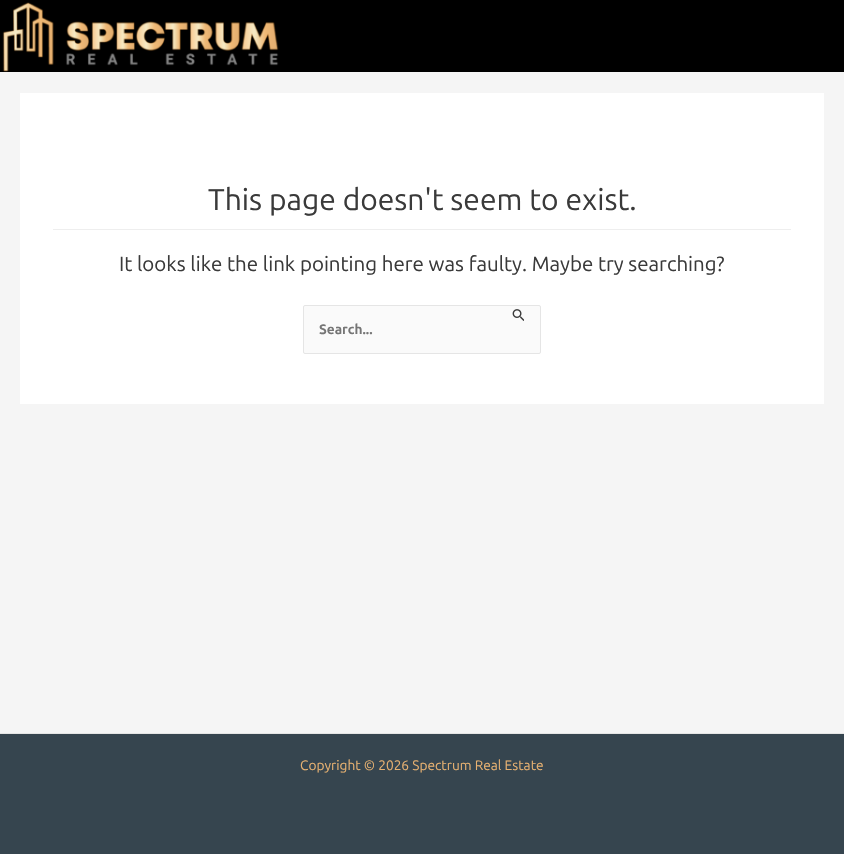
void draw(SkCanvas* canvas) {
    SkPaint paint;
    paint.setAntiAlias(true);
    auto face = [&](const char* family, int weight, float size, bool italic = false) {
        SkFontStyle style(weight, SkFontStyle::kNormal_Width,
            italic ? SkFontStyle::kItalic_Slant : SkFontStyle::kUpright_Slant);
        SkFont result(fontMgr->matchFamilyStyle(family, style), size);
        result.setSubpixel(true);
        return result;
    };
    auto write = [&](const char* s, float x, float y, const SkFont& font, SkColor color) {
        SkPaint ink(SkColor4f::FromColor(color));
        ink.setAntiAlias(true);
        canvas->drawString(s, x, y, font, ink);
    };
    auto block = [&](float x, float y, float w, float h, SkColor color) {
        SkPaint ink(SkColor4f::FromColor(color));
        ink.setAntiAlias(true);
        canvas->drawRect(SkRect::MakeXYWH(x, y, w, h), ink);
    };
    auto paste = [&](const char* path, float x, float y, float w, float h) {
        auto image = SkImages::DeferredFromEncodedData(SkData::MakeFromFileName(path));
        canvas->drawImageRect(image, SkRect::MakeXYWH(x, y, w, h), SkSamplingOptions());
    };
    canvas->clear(SkColorSetRGB(245, 245, 245));
    block(0, 0, 844, 72, SK_ColorBLACK);
    paste("pic1.png", 2, 2, 277, 70);
    block(20, 93, 804, 311, SK_ColorWHITE);
    block(53, 229, 738, 1, SkColorSetRGB(238, 238, 238));
    auto kFont1 = face("Ubuntu", 400, 30);
    write("This page doesn't seem to exist.", 208, 210, kFont1, SkColorSetRGB(58, 58, 58));
    auto kFont2 = face("Ubuntu", 400, 20.5f);
    write("It looks like the link pointing here was faulty. Maybe try searching?", 119, 271, kFont2, SkColorSetRGB(58, 58, 58));
    paint.setColor(SkColorSetRGB(250, 250, 250));
    canvas->drawRoundRect(SkRect::MakeXYWH(303.5f, 305.5f, 237, 48), 1.5f, 1.5f, paint);
    paint.setStyle(SkPaint::kStroke_Style);
    paint.setStrokeWidth(1);
    paint.setColor(SkColorSetRGB(229, 229, 229));
    canvas->drawRoundRect(SkRect::MakeXYWH(303.5f, 305.5f, 237, 48), 1.5f, 1.5f, paint);
    paste("pic2.png", 512, 309, 12, 12);
    auto kFont3 = face("Ubuntu", 700, 13.7f);
    write("Search...", 319, 334, kFont3, SkColorSetRGB(117, 117, 117));
    block(0, 734, 844, 120, SkColorSetRGB(54, 69, 79));
    block(0, 733, 844, 1, SkColorSetRGB(229, 229, 229));
    auto kFont4 = face("Ubuntu", 400, 13.7f);
    write("Copyright © 2026 Spectrum Real Estate", 300, 770, kFont4, SkColorSetRGB(231, 177, 113));
}
